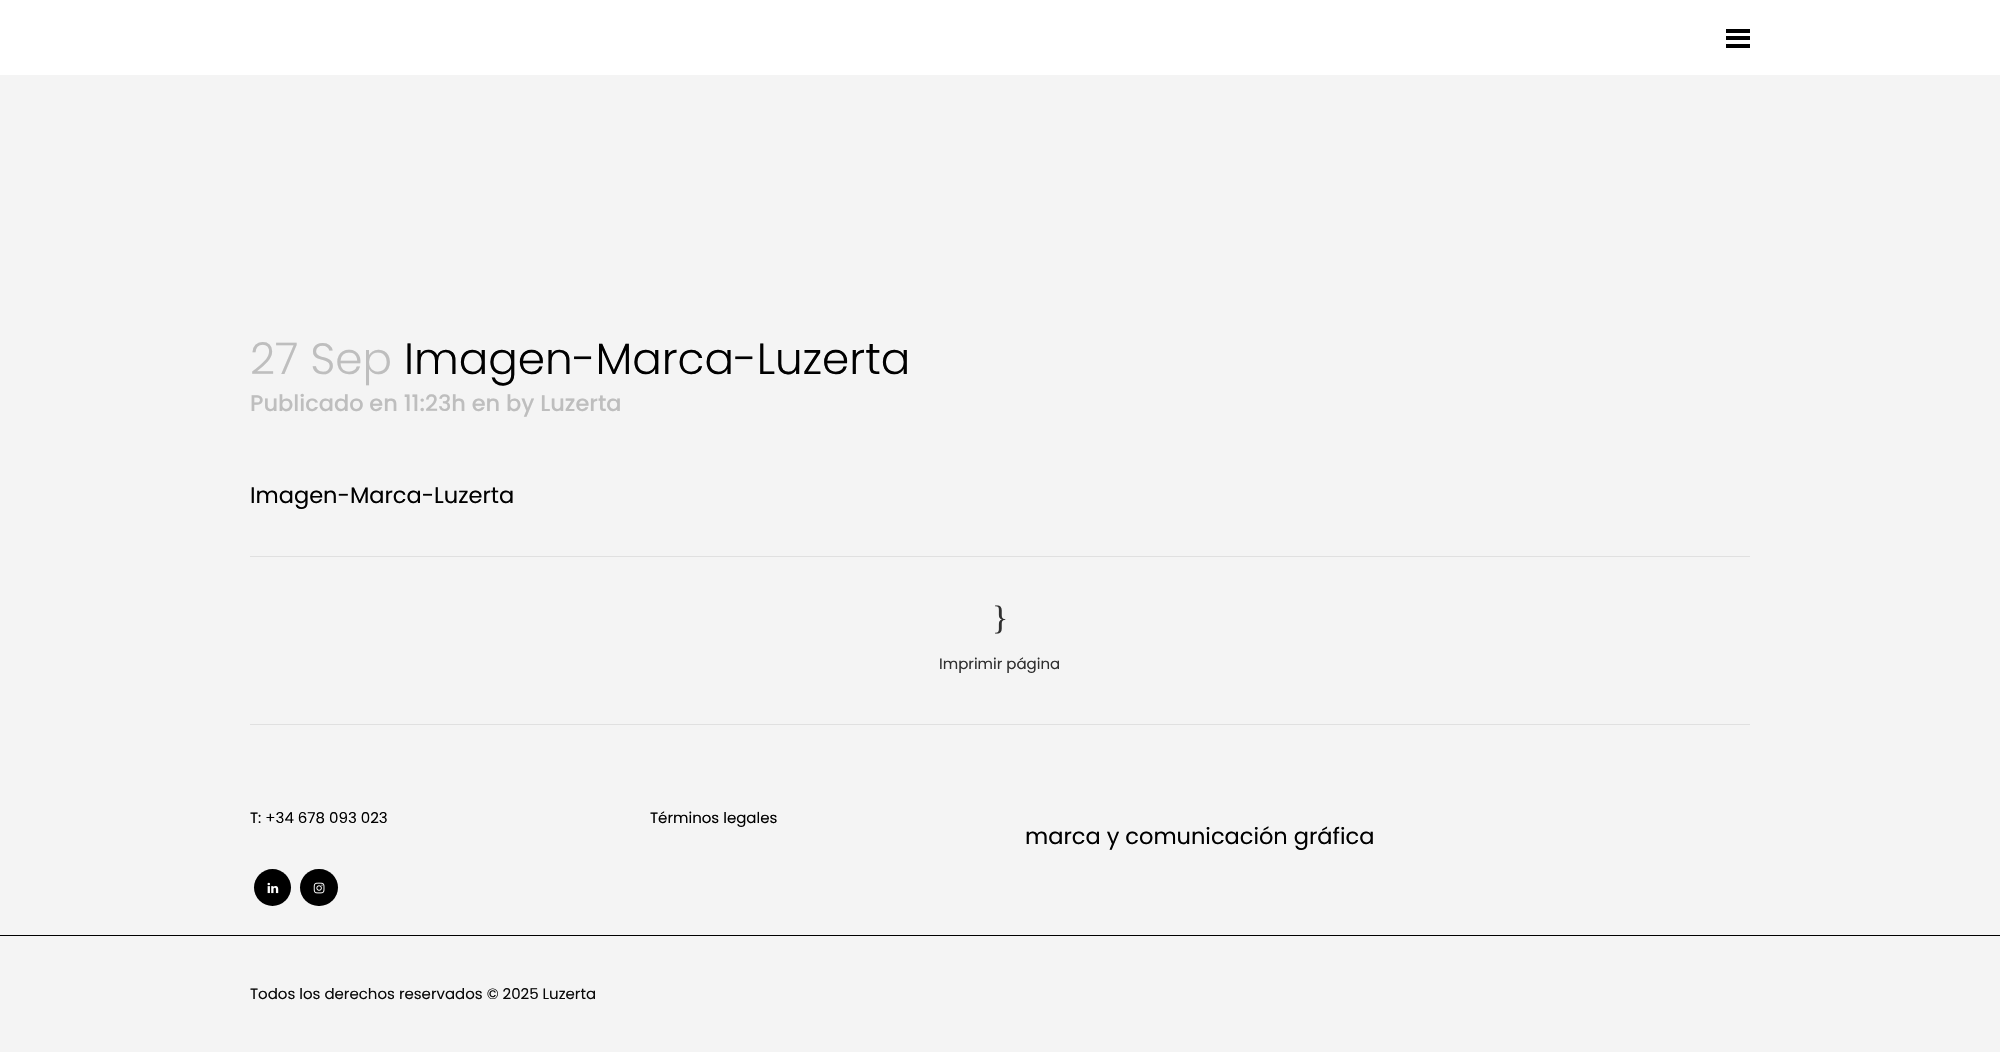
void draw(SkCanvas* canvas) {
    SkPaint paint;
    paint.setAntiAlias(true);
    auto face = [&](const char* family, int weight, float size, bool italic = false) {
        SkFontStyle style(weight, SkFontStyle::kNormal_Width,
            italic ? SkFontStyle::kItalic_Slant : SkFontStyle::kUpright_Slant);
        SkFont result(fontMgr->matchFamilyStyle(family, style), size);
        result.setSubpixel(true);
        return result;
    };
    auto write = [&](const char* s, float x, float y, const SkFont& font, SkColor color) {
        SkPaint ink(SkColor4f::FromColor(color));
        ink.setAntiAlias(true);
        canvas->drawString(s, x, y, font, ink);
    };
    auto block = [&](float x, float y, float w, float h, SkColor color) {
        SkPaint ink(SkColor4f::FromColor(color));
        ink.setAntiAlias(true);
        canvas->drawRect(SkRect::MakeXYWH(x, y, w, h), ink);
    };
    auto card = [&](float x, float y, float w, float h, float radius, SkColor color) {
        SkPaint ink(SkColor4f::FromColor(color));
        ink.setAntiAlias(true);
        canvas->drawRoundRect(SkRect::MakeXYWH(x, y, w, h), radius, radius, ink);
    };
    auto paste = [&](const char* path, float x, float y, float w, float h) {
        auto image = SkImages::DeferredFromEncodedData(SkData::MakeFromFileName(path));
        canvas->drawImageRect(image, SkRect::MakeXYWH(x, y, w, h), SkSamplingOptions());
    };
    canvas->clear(SkColorSetRGB(244, 244, 244));
    block(0, 0, 2000, 75, SK_ColorWHITE);
    block(1726, 36, 24, 4, SK_ColorBLACK);
    block(1726, 29, 24, 4, SK_ColorBLACK);
    block(1726, 44, 24, 4, SK_ColorBLACK);
    auto kFont1 = face("Poppins", 300, 43.75f);
    write("27 Sep", 250, 374, kFont1, SkColorSetRGB(190, 190, 190));
    write("Imagen-Marca-Luzerta", 404, 374, kFont1, SK_ColorBLACK);
    auto kFont2 = face("Poppins", 500, 22.5f);
    write("Publicado en 11:23h en by Luzerta", 250, 411, kFont2, SkColorSetRGB(190, 190, 190));
    auto kFont3 = face("Poppins", 400, 22.5f);
    write("Imagen-Marca-Luzerta", 250, 503, kFont3, SK_ColorBLACK);
    block(250, 556, 1500, 1, SkColorSetRGB(224, 224, 224));
    block(250, 724, 1500, 1, SkColorSetRGB(224, 224, 224));
    auto kFont4 = face("Liberation Serif", 400, 34);
    write("}", 992, 629, kFont4, SkColorSetRGB(48, 48, 48));
    auto kFont5 = face("Poppins", 400, 15);
    write("Imprimir página", 939, 669, kFont5, SkColorSetRGB(48, 48, 48));
    write("T: +34 678 093 023", 250, 823, kFont5, SK_ColorBLACK);
    paint.setColor(SK_ColorBLACK);
    canvas->drawCircle(272.5f, 887.5f, 18.5f, paint);
    paste("pic1.png", 267, 882, 12, 12);
    card(300, 869, 38, 37, 18.5f, SK_ColorBLACK);
    paste("pic2.png", 313, 882, 12, 12);
    write("Términos legales", 650, 823, kFont5, SK_ColorBLACK);
    write("marca y comunicación gráfica", 1025, 844, kFont3, SK_ColorBLACK);
    block(0, 935, 2000, 1, SK_ColorBLACK);
    write("Todos los derechos reservados © 2025 Luzerta", 250, 999, kFont5, SkColorSetRGB(10, 10, 10));
}
